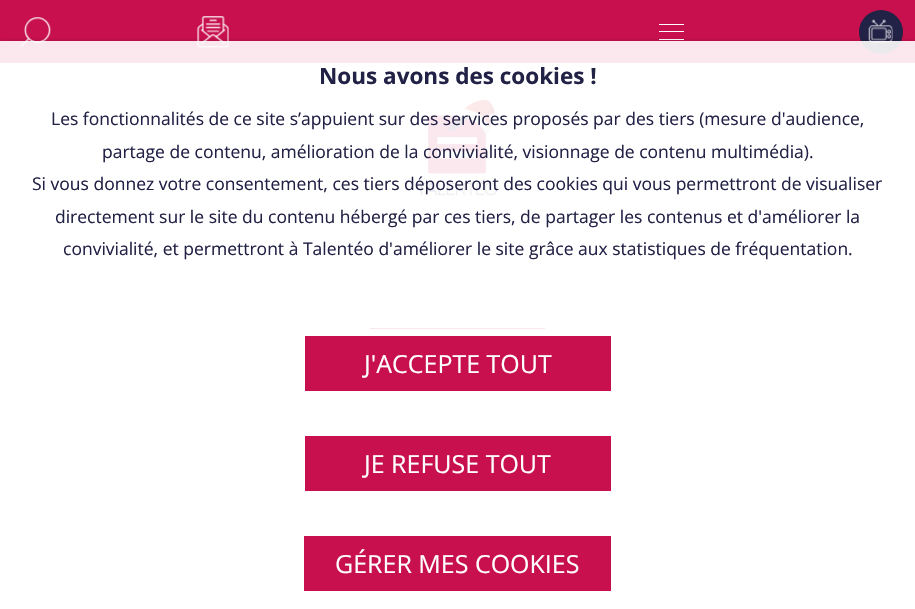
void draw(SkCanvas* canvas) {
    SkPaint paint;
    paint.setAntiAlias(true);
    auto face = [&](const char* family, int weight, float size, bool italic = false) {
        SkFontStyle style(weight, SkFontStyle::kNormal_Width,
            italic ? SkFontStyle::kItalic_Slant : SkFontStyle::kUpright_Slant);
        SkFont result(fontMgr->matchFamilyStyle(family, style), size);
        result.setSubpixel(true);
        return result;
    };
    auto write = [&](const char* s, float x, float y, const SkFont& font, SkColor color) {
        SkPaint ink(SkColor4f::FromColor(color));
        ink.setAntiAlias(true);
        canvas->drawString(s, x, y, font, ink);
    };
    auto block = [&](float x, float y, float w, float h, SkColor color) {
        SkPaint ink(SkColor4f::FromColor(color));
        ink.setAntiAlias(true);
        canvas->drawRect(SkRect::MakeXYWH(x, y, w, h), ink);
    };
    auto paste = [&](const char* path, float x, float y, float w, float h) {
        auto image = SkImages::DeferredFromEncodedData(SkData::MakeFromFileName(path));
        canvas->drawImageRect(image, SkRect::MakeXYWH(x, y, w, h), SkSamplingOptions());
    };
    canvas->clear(SK_ColorWHITE);
    block(0, 0, 915, 63, SkColorSetRGB(199, 16, 77));
    paste("pic1.png", 20, 17, 31, 30);
    paste("pic2.png", 197, 16, 32, 32);
    block(659, 31, 25, 1, SK_ColorWHITE);
    block(659, 24, 25, 1, SK_ColorWHITE);
    block(659, 39, 25, 1, SK_ColorWHITE);
    paint.setColor(SkColorSetRGB(34, 33, 70));
    canvas->drawCircle(881, 32, 22, paint);
    paste("pic3.png", 868, 19, 25, 25);
    paste("pic4.png", 416, 99, 83, 97);
    block(370, 328, 175, 1, SkColorSetRGB(199, 16, 77));
    canvas->save();
    canvas->clipRect(SkRect::MakeXYWH(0, 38, 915, 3));
    paint.setColor(SkColorSetARGB(128, 0, 0, 0));
    paint.setMaskFilter(SkMaskFilter::MakeBlur(kNormal_SkBlurStyle, 6));
    canvas->drawRect(SkRect::MakeXYWH(0, 48, 915, 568), paint);
    paint.setMaskFilter(nullptr);
    canvas->restore();
    block(0, 41, 915, 288, SkColorSetARGB(230, 255, 255, 255));
    auto kFont1 = face("Open Sans", 700, 22.5f);
    write("Nous avons des cookies !", 319, 84, kFont1, SkColorSetRGB(34, 33, 70));
    auto kFont2 = face("Open Sans", 400, 17.5f);
    write("Les fonctionnalités de ce site s’appuient sur des services proposés par des tiers (mesure d'audience,", 51, 125, kFont2, SkColorSetRGB(34, 33, 70));
    write("partage de contenu, amélioration de la convivialité, visionnage de contenu multimédia).", 102, 158, kFont2, SkColorSetRGB(34, 33, 70));
    write("Si vous donnez votre consentement, ces tiers déposeront des cookies qui vous permettront de visualiser", 32, 190, kFont2, SkColorSetRGB(34, 33, 70));
    write("directement sur le site du contenu hébergé par ces tiers, de partager les contenus et d'améliorer la", 55, 223, kFont2, SkColorSetRGB(34, 33, 70));
    write("convivialité, et permettront à Talentéo d'améliorer le site grâce aux statistiques de fréquentation.", 63, 255, kFont2, SkColorSetRGB(34, 33, 70));
    block(305, 336, 306, 55, SkColorSetRGB(199, 16, 77));
    auto kFont3 = face("Open Sans", 400, 25);
    write("J'ACCEPTE TOUT", 364, 373, kFont3, SK_ColorWHITE);
    block(305, 436, 306, 55, SkColorSetRGB(199, 16, 77));
    write("JE REFUSE TOUT", 364, 473, kFont3, SK_ColorWHITE);
    block(304, 536, 307, 55, SkColorSetRGB(199, 16, 77));
    write("GÉRER MES COOKIES", 335, 573, kFont3, SK_ColorWHITE);
}
